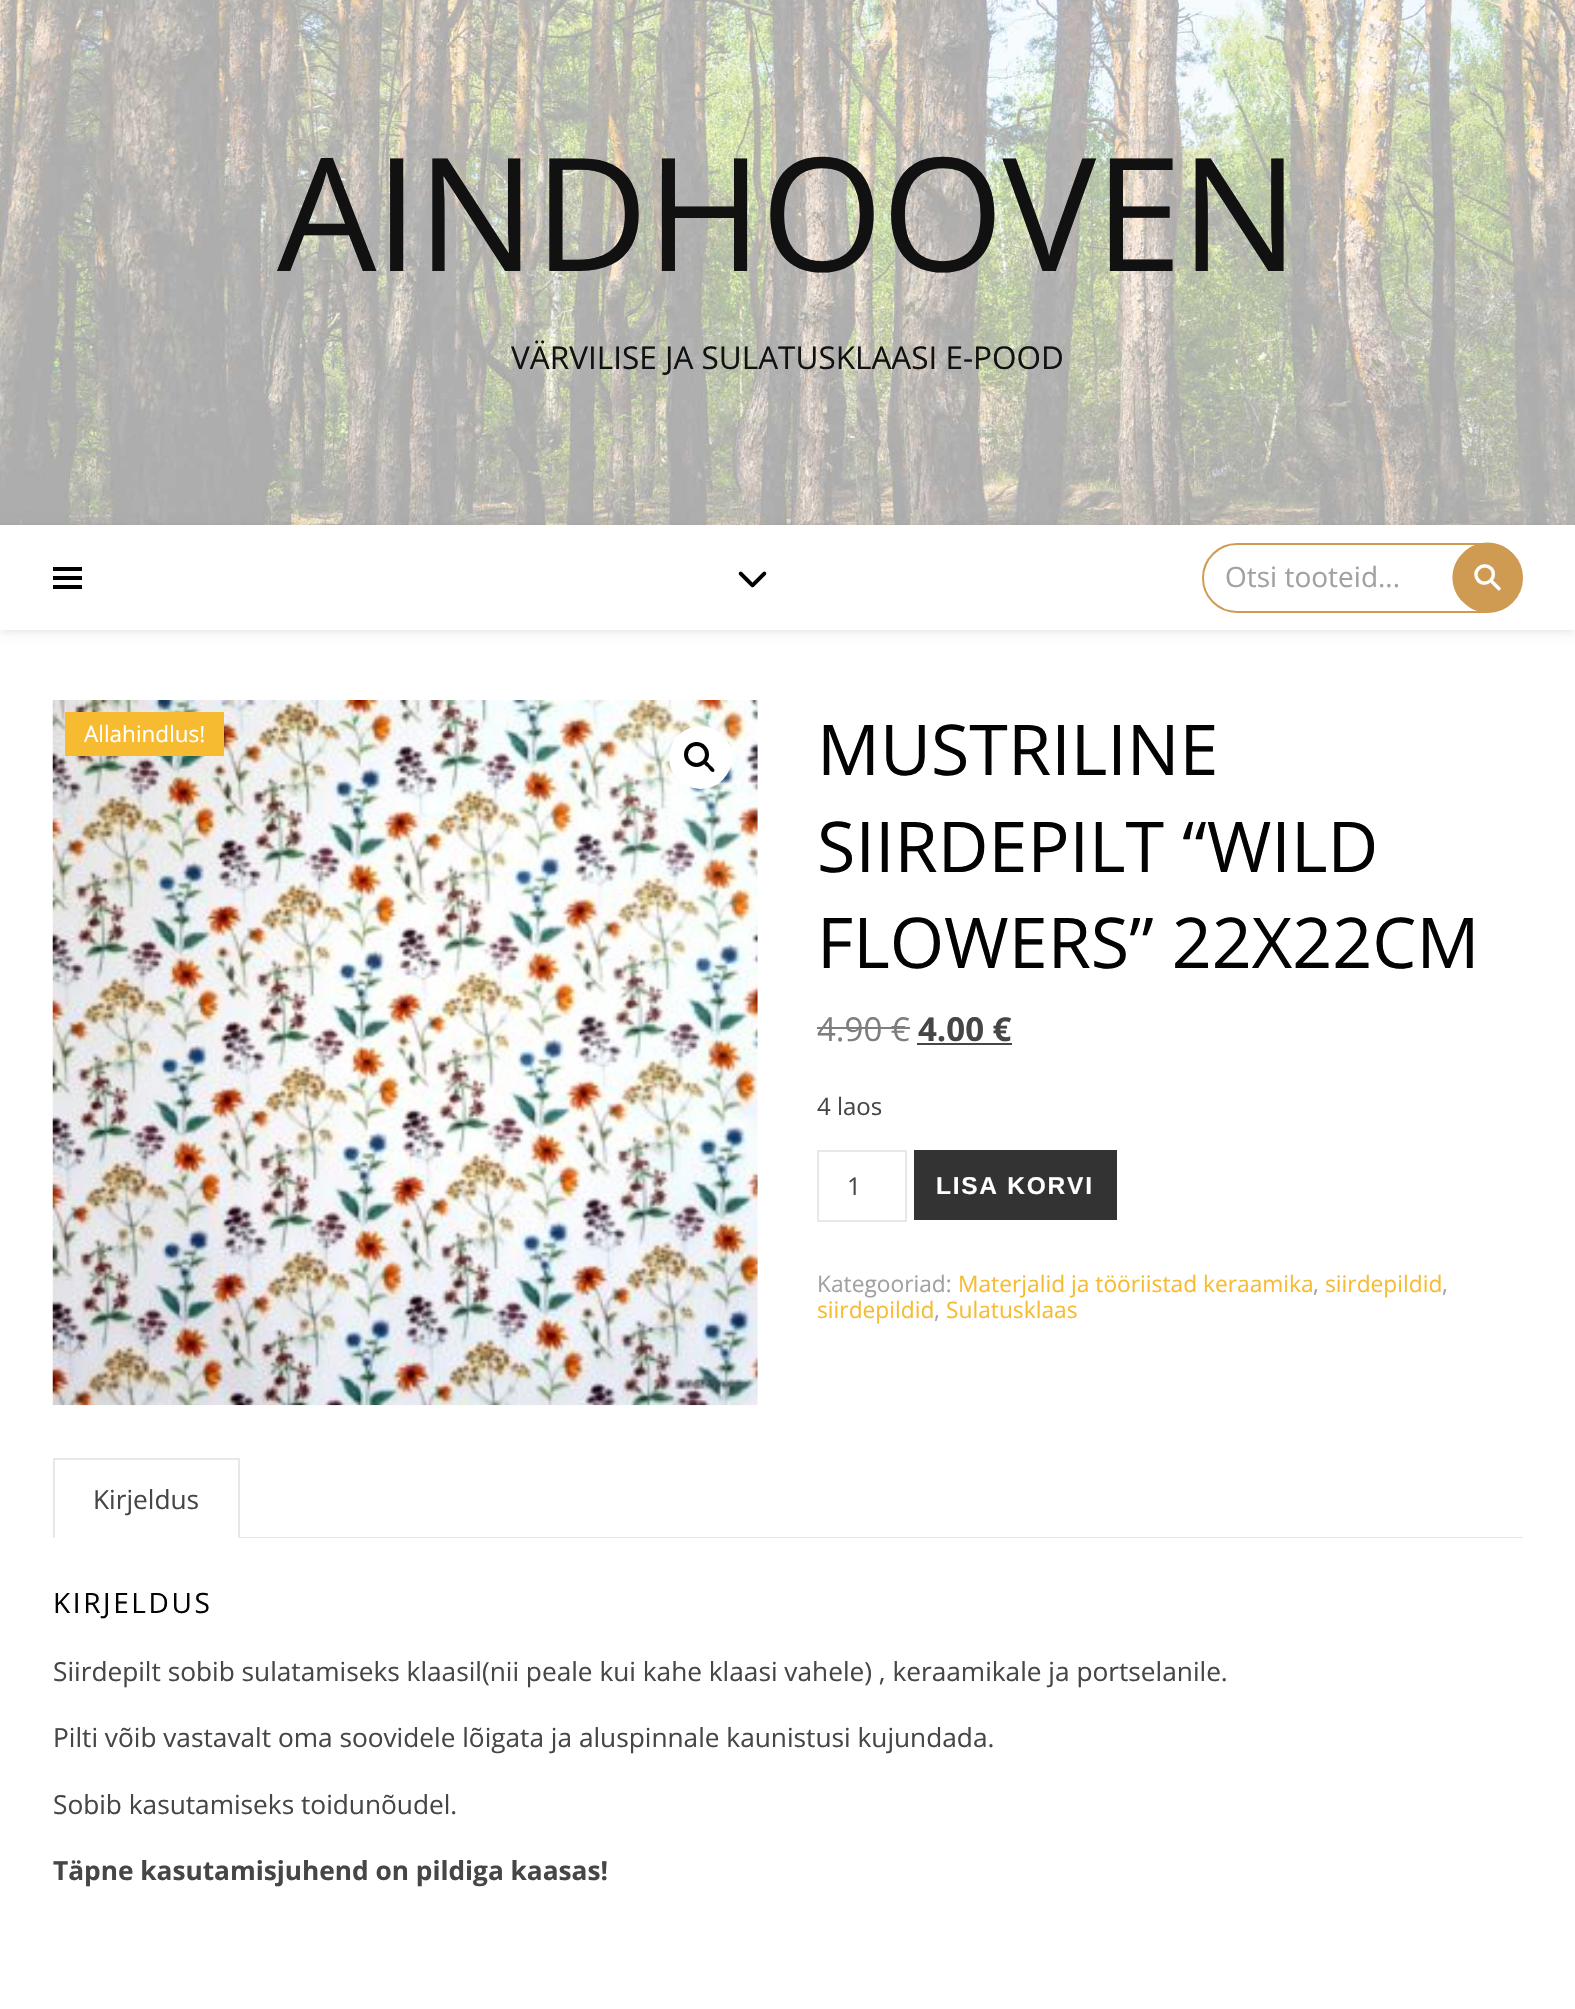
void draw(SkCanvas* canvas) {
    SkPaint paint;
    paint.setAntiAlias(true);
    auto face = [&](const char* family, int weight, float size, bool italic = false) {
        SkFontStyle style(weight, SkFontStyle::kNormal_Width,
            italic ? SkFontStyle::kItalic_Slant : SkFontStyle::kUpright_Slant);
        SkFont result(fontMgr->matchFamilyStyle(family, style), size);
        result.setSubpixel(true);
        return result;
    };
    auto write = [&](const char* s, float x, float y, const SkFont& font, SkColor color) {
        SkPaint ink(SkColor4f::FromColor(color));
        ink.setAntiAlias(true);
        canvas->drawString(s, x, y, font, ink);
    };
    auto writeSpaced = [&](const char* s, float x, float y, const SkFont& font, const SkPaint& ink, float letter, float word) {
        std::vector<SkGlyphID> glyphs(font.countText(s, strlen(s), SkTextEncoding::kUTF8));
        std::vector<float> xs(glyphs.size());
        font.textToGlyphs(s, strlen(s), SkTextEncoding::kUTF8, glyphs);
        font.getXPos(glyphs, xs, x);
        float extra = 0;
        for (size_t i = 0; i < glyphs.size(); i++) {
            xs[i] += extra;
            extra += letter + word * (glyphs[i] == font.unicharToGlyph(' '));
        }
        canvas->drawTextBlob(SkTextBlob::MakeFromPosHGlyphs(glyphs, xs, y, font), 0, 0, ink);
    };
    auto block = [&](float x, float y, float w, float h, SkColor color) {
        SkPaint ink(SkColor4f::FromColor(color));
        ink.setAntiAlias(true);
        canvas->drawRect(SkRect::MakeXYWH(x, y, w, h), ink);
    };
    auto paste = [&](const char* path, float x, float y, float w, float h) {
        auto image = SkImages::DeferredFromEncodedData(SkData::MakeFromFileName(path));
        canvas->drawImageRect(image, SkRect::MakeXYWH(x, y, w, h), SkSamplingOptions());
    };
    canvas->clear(SK_ColorWHITE);
    paste("pic1.png", 0, 0, 1575, 525);
    auto kFont1 = face("Open Sans", 400, 157.5f);
    paint.setColor(SkColorSetRGB(17, 17, 17));
    writeSpaced("AINDHOOVEN", 277, 271, kFont1, paint, -1.75f, 0);
    auto kFont2 = face("Open Sans", 400, 31.5f);
    write("VÄRVILISE JA SULATUSKLAASI E-POOD", 511, 369, kFont2, SkColorSetRGB(17, 17, 17));
    canvas->save();
    canvas->clipPath(SkPathBuilder(SkPathFillType::kEvenOdd).moveTo(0, 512).lineTo(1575, 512).lineTo(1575, 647).lineTo(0, 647).close().moveTo(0, 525).lineTo(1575, 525).lineTo(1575, 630).lineTo(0, 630).close().detach(), true);
    paint.setColor(SkColorSetARGB(26, 0, 0, 0));
    paint.setMaskFilter(SkMaskFilter::MakeBlur(kNormal_SkBlurStyle, 4.5f));
    canvas->drawRect(SkRect::MakeXYWH(0, 527, 1575, 105), paint);
    paint.setMaskFilter(nullptr);
    canvas->restore();
    block(53, 567, 29, 4, SK_ColorBLACK);
    block(53, 576, 29, 4, SK_ColorBLACK);
    block(53, 585, 29, 4, SK_ColorBLACK);
    paste("pic2.png", 738, 571, 29, 17);
    paint.setStyle(SkPaint::kStroke_Style);
    paint.setStrokeWidth(2);
    paint.setColor(SkColorSetRGB(207, 155, 82));
    canvas->drawRoundRect(SkRect::MakeXYWH(1203, 544, 319, 68), 34, 34, paint);
    auto kFont3 = face("Open Sans", 400, 28);
    write("Otsi tooteid...", 1225, 587, kFont3, SkColorSetRGB(161, 161, 161));
    paint.setStyle(SkPaint::kFill_Style);
    canvas->drawPath(SkPathBuilder().moveTo(1463, 553).cubicTo(1476, 539, 1499, 539, 1512, 553).cubicTo(1526, 566, 1526, 589, 1512, 602).cubicTo(1499, 616, 1476, 616, 1463, 602).cubicTo(1449, 589, 1449, 566, 1463, 553).close().detach(), paint);
    auto kFont4 = face("DejaVu Sans", 400, 37);
    canvas->save();
    canvas->rotate(-45, 1487, 596);
    write("⚲", 1487, 596, kFont4, SK_ColorWHITE);
    canvas->restore();
    paste("pic3.png", 52, 700, 706, 706);
    paint.setColor(SK_ColorWHITE);
    canvas->drawCircle(700.5f, 757.5f, 31.5f, paint);
    paint.setStyle(SkPaint::kStroke_Style);
    paint.setStrokeWidth(4);
    paint.setColor(SK_ColorBLACK);
    canvas->drawCircle(696.5f, 754.5f, 10.5f, paint);
    paint.setStyle(SkPaint::kFill_Style);
    canvas->drawPath(SkPathBuilder().moveTo(704, 761.5f).cubicTo(706, 759.5f, 709, 764, 710.5f, 765.5f).cubicTo(711.5f, 766.5f, 716, 769.5f, 714, 771.5f).cubicTo(712, 773.5f, 709, 769, 708, 767.5f).cubicTo(707, 766.5f, 702, 763.5f, 704, 761.5f).close().detach(), paint);
    block(65, 712, 159, 44, SkColorSetRGB(247, 187, 49));
    auto kFont5 = face("Open Sans", 400, 22.5f);
    write("Allahindlus!", 84, 742, kFont5, SK_ColorWHITE);
    auto kFont6 = face("Open Sans", 400, 70);
    write("MUSTRILINE", 817, 775, kFont6, SkColorSetRGB(3, 3, 3));
    write("SIIRDEPILT “WILD", 817, 872, kFont6, SkColorSetRGB(3, 3, 3));
    write("FLOWERS” 22X22CM", 817, 968, kFont6, SkColorSetRGB(3, 3, 3));
    auto kFont7 = face("Open Sans", 400, 33);
    write("4.90 €", 817, 1041, kFont7, SkColorSetRGB(126, 126, 126));
    block(817, 1027, 93, 2, SkColorSetRGB(126, 126, 126));
    auto kFont8 = face("Open Sans", 700, 33);
    write("4.00 €", 918, 1041, kFont8, SkColorSetRGB(70, 70, 70));
    block(917, 1043, 95, 2, SkColorSetRGB(70, 70, 70));
    auto kFont9 = face("Open Sans", 400, 24);
    write("4 laos", 817, 1115, kFont9, SkColorSetRGB(70, 70, 70));
    paint.setStyle(SkPaint::kStroke_Style);
    paint.setStrokeWidth(2);
    paint.setColor(SkColorSetRGB(232, 232, 232));
    canvas->drawRect(SkRect::MakeXYWH(818, 1151, 88, 70), paint);
    auto kFont10 = face("Open Sans", 400, 24.5f);
    write("1", 847, 1195, kFont10, SkColorSetRGB(70, 70, 70));
    block(914, 1150, 203, 70, SkColorSetRGB(51, 51, 51));
    auto kFont11 = face("Liberation Sans", 700, 24.5f);
    paint.setStyle(SkPaint::kFill_Style);
    paint.setColor(SK_ColorWHITE);
    writeSpaced("LISA KORVI", 936, 1194, kFont11, paint, 1.75f, 0);
    auto kFont12 = face("Open Sans", 400, 22.75f);
    write("Kategooriad:", 817, 1292, kFont12, SkColorSetRGB(161, 161, 161));
    write("Materjalid ja tööriistad keraamika", 958, 1292, kFont12, SkColorSetRGB(247, 187, 49));
    write(",", 1313, 1292, kFont12, SkColorSetRGB(161, 161, 161));
    write("siirdepildid", 1325, 1292, kFont12, SkColorSetRGB(247, 187, 49));
    write(",", 1442, 1292, kFont12, SkColorSetRGB(161, 161, 161));
    write("siirdepildid", 817, 1318, kFont12, SkColorSetRGB(247, 187, 49));
    write(",", 934, 1318, kFont12, SkColorSetRGB(161, 161, 161));
    write("Sulatusklaas", 946, 1318, kFont12, SkColorSetRGB(247, 187, 49));
    block(53, 1458, 187, 2, SkColorSetRGB(232, 232, 232));
    block(238, 1458, 2, 80, SkColorSetRGB(232, 232, 232));
    block(53, 1458, 2, 80, SkColorSetRGB(232, 232, 232));
    auto kFont13 = face("Open Sans", 400, 26.25f);
    write("Kirjeldus", 93, 1509, kFont13, SkColorSetRGB(70, 70, 70));
    block(240, 1537, 1283, 1, SkColorSetRGB(232, 232, 232));
    paint.setColor(SkColorSetRGB(3, 3, 3));
    writeSpaced("KIRJELDUS", 53, 1613, kFont3, paint, 2.6f, 0);
    write("Siirdepilt sobib sulatamiseks klaasil(nii peale kui kahe klaasi vahele) , keraamikale ja portselanile.", 53, 1681, kFont13, SkColorSetRGB(70, 70, 70));
    write("Pilti võib vastavalt oma soovidele lõigata ja aluspinnale kaunistusi kujundada.", 53, 1747, kFont13, SkColorSetRGB(70, 70, 70));
    write("Sobib kasutamiseks toidunõudel.", 53, 1814, kFont13, SkColorSetRGB(70, 70, 70));
    auto kFont14 = face("Open Sans", 700, 26.25f);
    write("Täpne kasutamisjuhend on pildiga kaasas!", 53, 1880, kFont14, SkColorSetRGB(70, 70, 70));
}
